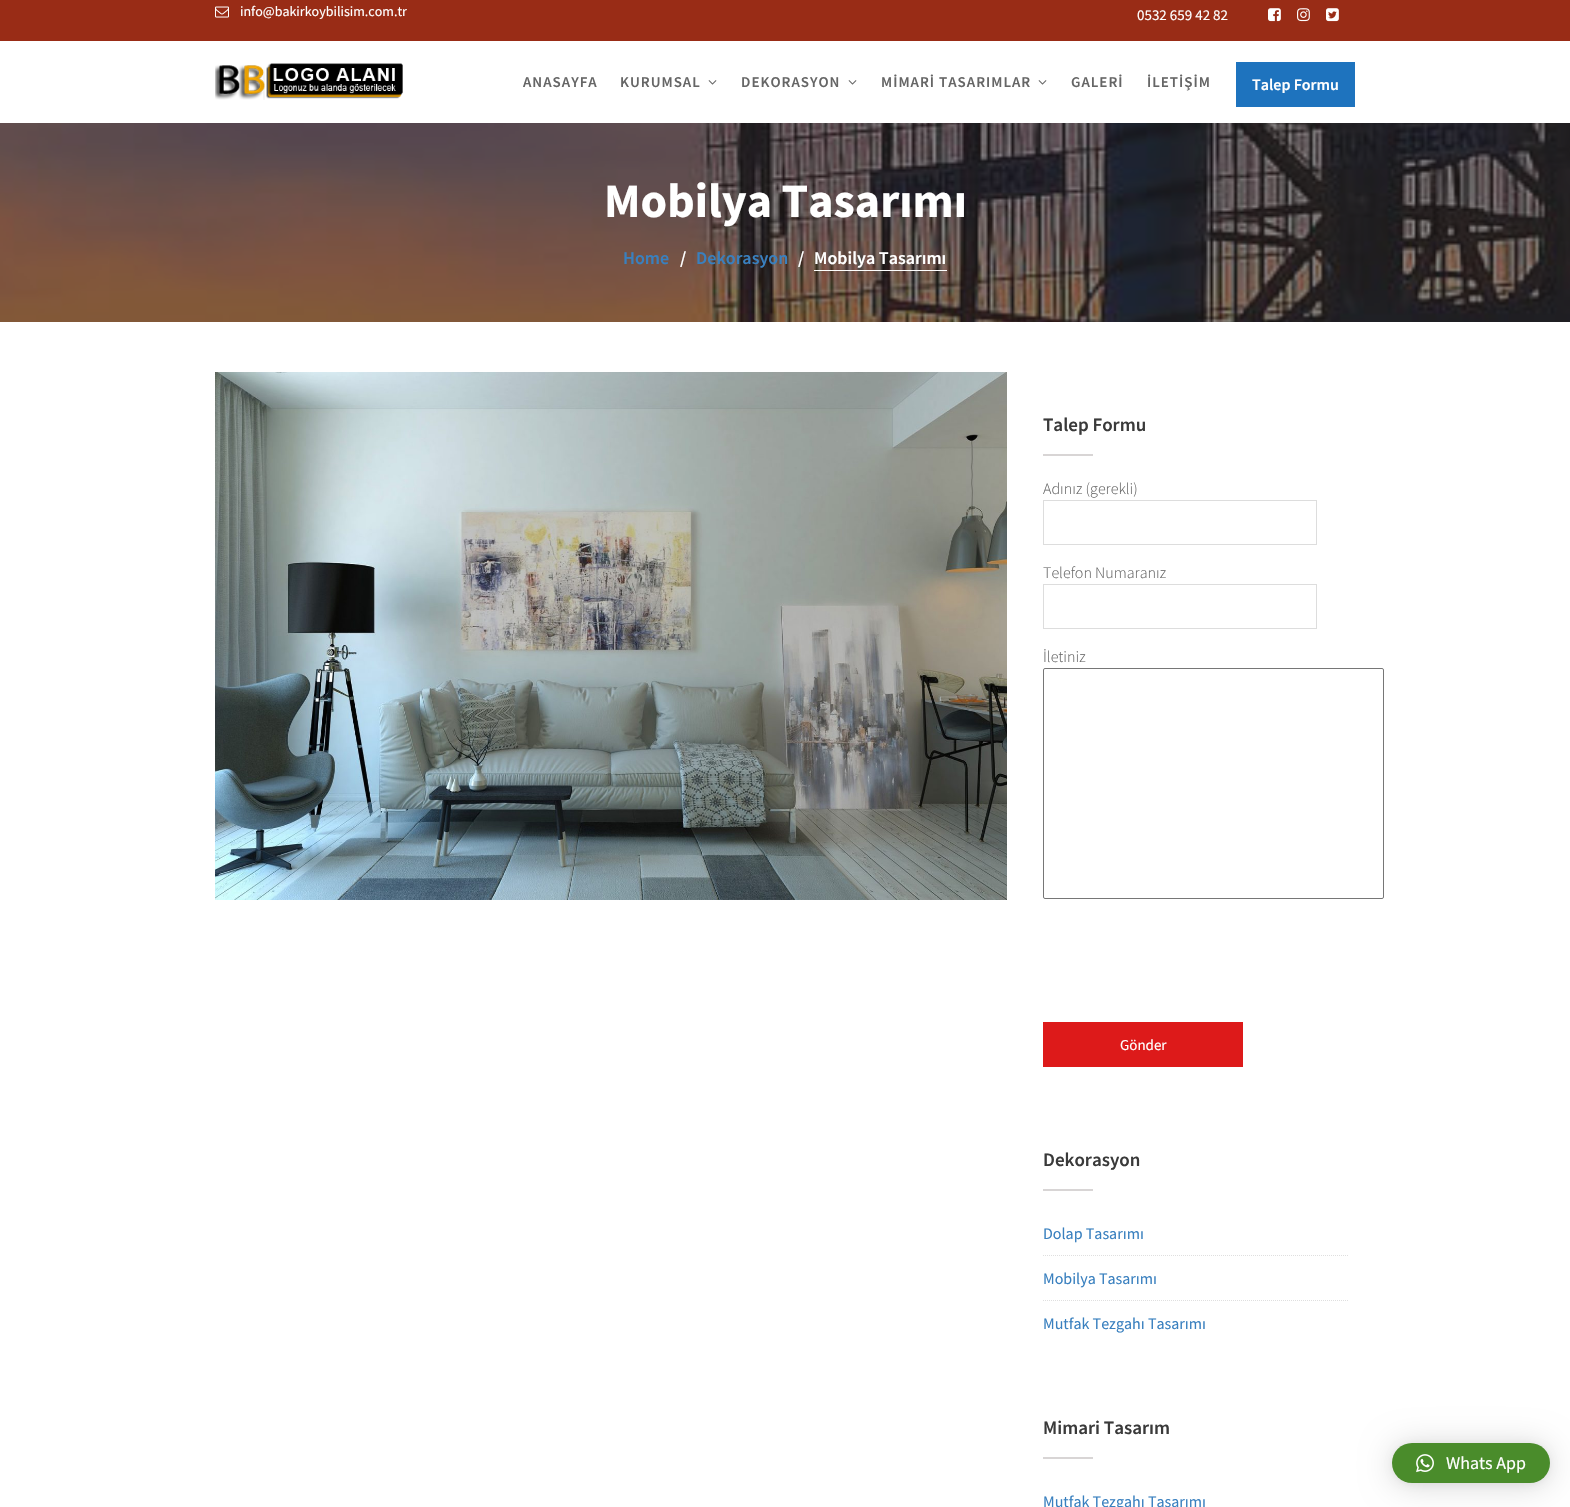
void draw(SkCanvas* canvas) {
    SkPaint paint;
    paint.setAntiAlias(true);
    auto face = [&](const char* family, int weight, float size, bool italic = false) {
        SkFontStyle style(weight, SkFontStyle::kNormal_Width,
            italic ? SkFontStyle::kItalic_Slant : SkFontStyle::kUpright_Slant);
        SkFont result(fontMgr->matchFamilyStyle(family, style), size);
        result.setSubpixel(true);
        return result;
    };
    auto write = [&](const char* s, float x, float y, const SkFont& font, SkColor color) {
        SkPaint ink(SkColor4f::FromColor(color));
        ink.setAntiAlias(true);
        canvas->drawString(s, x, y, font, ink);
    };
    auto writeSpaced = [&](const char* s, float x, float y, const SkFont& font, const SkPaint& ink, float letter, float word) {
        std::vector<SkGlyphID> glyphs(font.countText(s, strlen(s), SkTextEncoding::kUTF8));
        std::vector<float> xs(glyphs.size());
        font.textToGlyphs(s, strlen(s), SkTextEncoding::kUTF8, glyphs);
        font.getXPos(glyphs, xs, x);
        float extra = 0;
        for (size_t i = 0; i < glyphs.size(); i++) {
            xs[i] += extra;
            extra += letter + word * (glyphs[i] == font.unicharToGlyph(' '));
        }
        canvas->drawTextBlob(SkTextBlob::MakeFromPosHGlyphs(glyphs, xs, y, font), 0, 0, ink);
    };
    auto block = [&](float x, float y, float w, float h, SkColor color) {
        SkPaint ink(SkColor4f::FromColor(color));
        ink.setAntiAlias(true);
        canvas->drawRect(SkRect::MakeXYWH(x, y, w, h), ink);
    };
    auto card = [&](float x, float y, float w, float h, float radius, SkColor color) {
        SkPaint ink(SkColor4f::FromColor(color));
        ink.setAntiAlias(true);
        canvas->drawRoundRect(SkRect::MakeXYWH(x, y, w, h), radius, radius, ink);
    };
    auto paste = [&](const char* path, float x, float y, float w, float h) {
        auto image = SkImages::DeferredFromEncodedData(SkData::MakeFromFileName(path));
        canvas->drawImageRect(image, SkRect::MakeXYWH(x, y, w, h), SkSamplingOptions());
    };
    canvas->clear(SK_ColorWHITE);
    block(0, 0, 1570, 41, SkColorSetRGB(153, 44, 22));
    paste("pic1.png", 215, 6, 14, 12);
    auto kFont1 = face("Source Sans Pro", 400, 14);
    write("info@bakirkoybilisim.com.tr", 240, 16, kFont1, SK_ColorWHITE);
    auto kFont2 = face("Source Sans Pro", 400, 15);
    write("0532 659 42 82", 1137, 20, kFont2, SK_ColorWHITE);
    paste("pic2.png", 1268, 8, 13, 14);
    paste("pic3.png", 1297, 8, 13, 14);
    paste("pic4.png", 1326, 8, 13, 14);
    paste("pic5.png", 215, 63, 188, 37);
    auto kFont3 = face("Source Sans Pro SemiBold", 600, 15);
    paint.setColor(SkColorSetRGB(102, 102, 102));
    writeSpaced("ANASAYFA", 523, 87, kFont3, paint, 1, 0);
    writeSpaced("KURUMSAL", 620, 87, kFont3, paint, 1, 0);
    paste("pic6.png", 708, 80, 9, 5);
    writeSpaced("DEKORASYON", 741, 87, kFont3, paint, 1, 0);
    paste("pic6.png", 848, 80, 9, 5);
    writeSpaced("MİMARİ TASARIMLAR", 881, 87, kFont3, paint, 1, 0);
    paste("pic6.png", 1038, 80, 9, 5);
    writeSpaced("GALERİ", 1071, 87, kFont3, paint, 1, 0);
    writeSpaced("İLETİŞİM", 1147, 87, kFont3, paint, 1, 0);
    block(1236, 62, 119, 45, SkColorSetRGB(30, 115, 190));
    auto kFont4 = face("Source Sans Pro SemiBold", 600, 16);
    write("Talep Formu", 1252, 90, kFont4, SK_ColorWHITE);
    paste("pic7.png", 0, 123, 1570, 199);
    auto kFont5 = face("Source Sans Pro", 700, 48);
    write("Mobilya Tasarımı", 604, 217, kFont5, SK_ColorWHITE);
    auto kFont6 = face("Source Sans Pro SemiBold", 600, 18);
    write("Home", 623, 264, kFont6, SkColorSetRGB(57, 128, 191));
    write("/", 680, 264, kFont6, SK_ColorWHITE);
    write("Dekorasyon", 696, 264, kFont6, SkColorSetRGB(57, 128, 191));
    write("/", 798, 264, kFont6, SK_ColorWHITE);
    block(814, 270, 133, 1, SK_ColorWHITE);
    write("Mobilya Tasarımı", 814, 264, kFont6, SK_ColorWHITE);
    paste("pic8.png", 215, 372, 792, 528);
    auto kFont7 = face("Source Sans Pro SemiBold", 600, 19);
    write("Talep Formu", 1043, 431, kFont7, SkColorSetRGB(58, 58, 58));
    block(1043, 454, 50, 2, SkColorSetRGB(216, 213, 213));
    auto kFont8 = face("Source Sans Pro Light", 300, 16);
    write("Adınız (gerekli)", 1043, 494, kFont8, SkColorSetRGB(102, 102, 102));
    paint.setStyle(SkPaint::kStroke_Style);
    paint.setStrokeWidth(1);
    paint.setColor(SkColorSetRGB(221, 221, 221));
    canvas->drawRect(SkRect::MakeXYWH(1043.5f, 500.5f, 273, 44), paint);
    write("Telefon Numaranız", 1043, 578, kFont8, SkColorSetRGB(102, 102, 102));
    canvas->drawRect(SkRect::MakeXYWH(1043.5f, 584.5f, 273, 44), paint);
    write("İletiniz", 1043, 662, kFont8, SkColorSetRGB(102, 102, 102));
    paint.setColor(SkColorSetRGB(118, 118, 118));
    canvas->drawRoundRect(SkRect::MakeXYWH(1043.5f, 668.5f, 340, 230), 1.5f, 1.5f, paint);
    block(1043, 1022, 200, 45, SkColorSetRGB(221, 26, 26));
    write("Gönder", 1120, 1050, kFont2, SK_ColorWHITE);
    write("Dekorasyon", 1043, 1166, kFont7, SkColorSetRGB(58, 58, 58));
    block(1043, 1189, 50, 2, SkColorSetRGB(216, 213, 213));
    paint.setColor(SkColorSetRGB(223, 223, 223));
    paint.setPathEffect(SkDashPathEffect::Make({{1, 1}}, 0));
    canvas->drawPath(SkPathBuilder().moveTo(1043, 1255.5f).lineTo(1348, 1255.5f).detach(), paint);
    paint.setPathEffect(nullptr);
    auto kFont9 = face("Source Sans Pro", 400, 16);
    write("Dolap Tasarımı", 1043, 1239, kFont9, SkColorSetRGB(57, 128, 191));
    paint.setPathEffect(SkDashPathEffect::Make({{1, 1}}, 0));
    canvas->drawPath(SkPathBuilder().moveTo(1043, 1300.5f).lineTo(1348, 1300.5f).detach(), paint);
    paint.setPathEffect(nullptr);
    write("Mobilya Tasarımı", 1043, 1284, kFont9, SkColorSetRGB(57, 128, 191));
    write("Mutfak Tezgahı Tasarımı", 1043, 1329, kFont9, SkColorSetRGB(57, 128, 191));
    write("Mimari Tasarım", 1043, 1434, kFont7, SkColorSetRGB(58, 58, 58));
    block(1043, 1457, 50, 2, SkColorSetRGB(216, 213, 213));
    write("Mutfak Tezgahı Tasarımı", 1043, 1507, kFont9, SkColorSetRGB(57, 128, 191));
    paint.setStyle(SkPaint::kFill_Style);
    paint.setColor(SkColorSetARGB(41, 0, 0, 0));
    paint.setMaskFilter(SkMaskFilter::MakeBlur(kNormal_SkBlurStyle, 16));
    canvas->drawRoundRect(SkRect::MakeXYWH(1392, 1445, 158, 40), 20, 20, paint);
    paint.setMaskFilter(nullptr);
    paint.setColor(SkColorSetARGB(15, 0, 0, 0));
    paint.setMaskFilter(SkMaskFilter::MakeBlur(kNormal_SkBlurStyle, 3));
    canvas->drawRoundRect(SkRect::MakeXYWH(1392, 1444, 158, 40), 20, 20, paint);
    paint.setMaskFilter(nullptr);
    card(1392, 1443, 158, 40, 20, SkColorSetRGB(74, 140, 43));
    paste("pic9.png", 1416, 1454, 18, 19);
    auto kFont10 = face("Source Sans Pro", 400, 18);
    write("Whats App", 1446, 1469, kFont10, SK_ColorWHITE);
}
